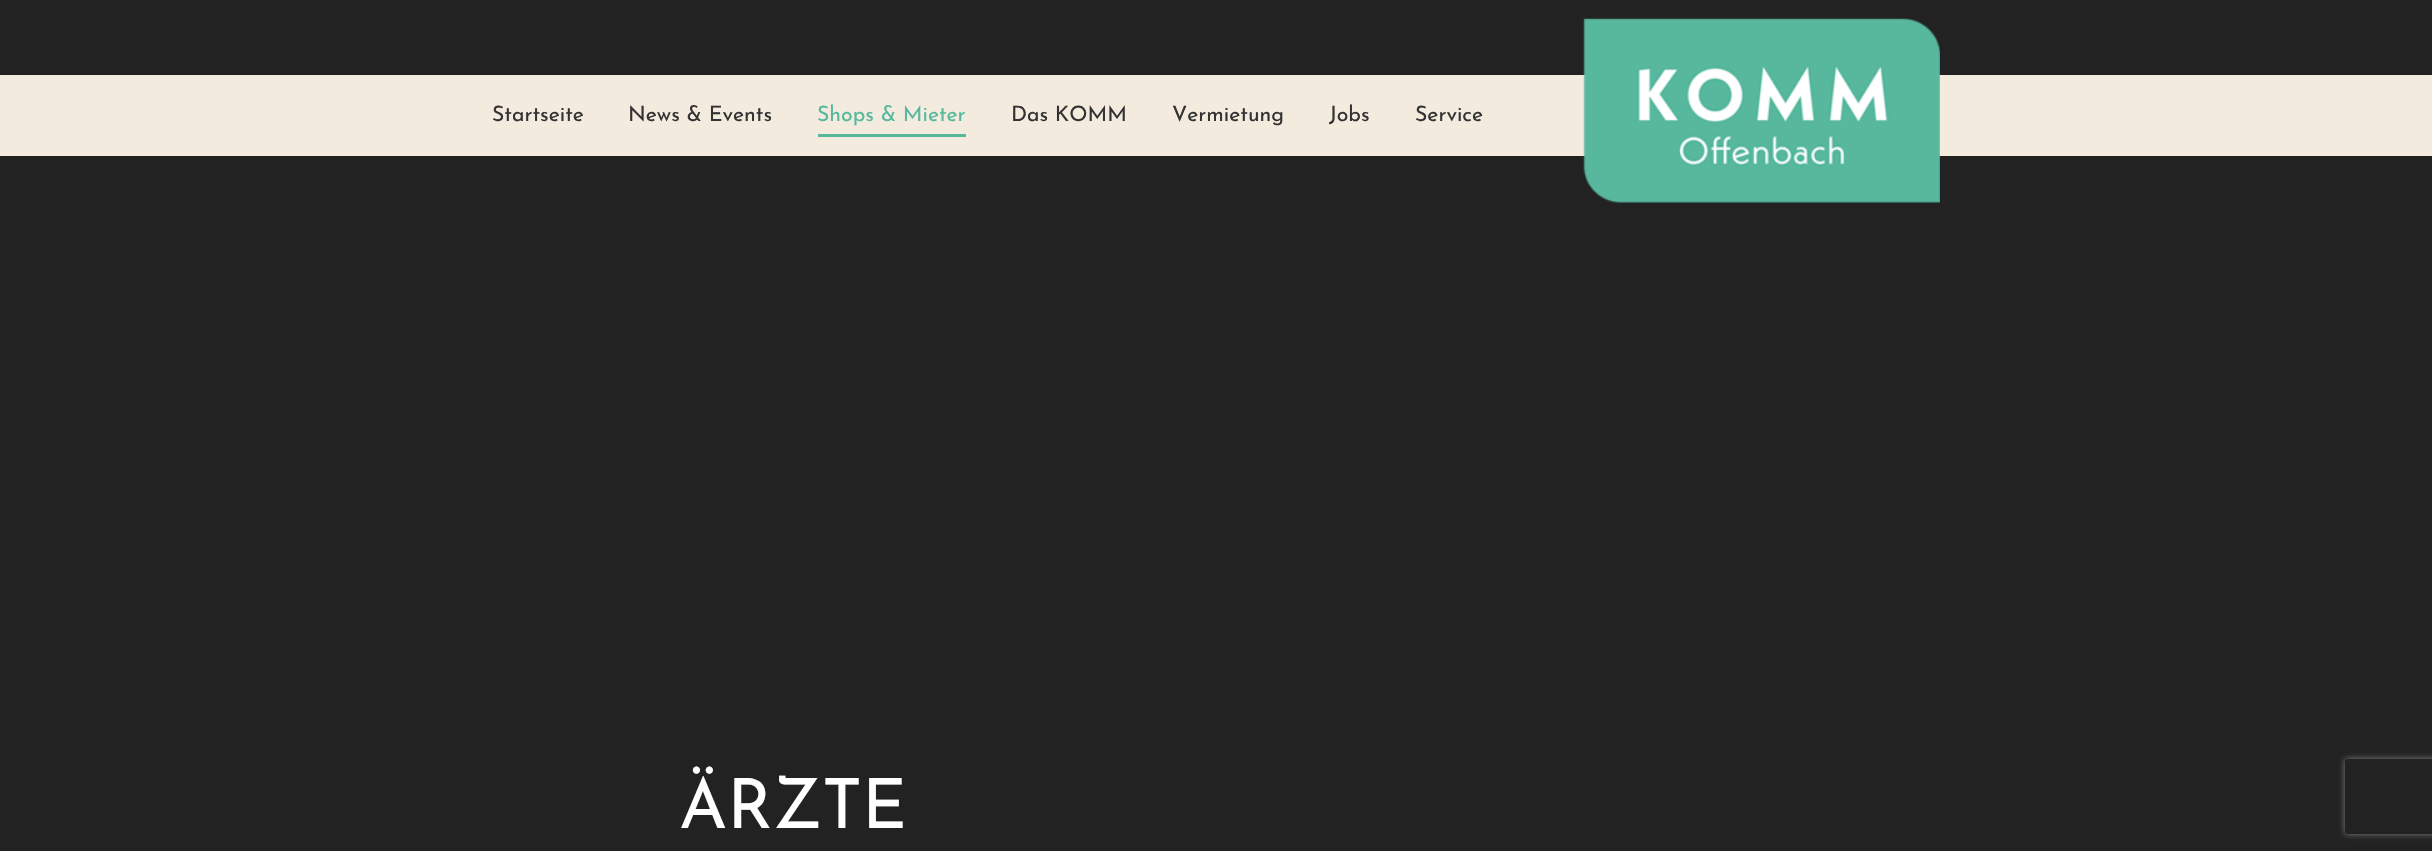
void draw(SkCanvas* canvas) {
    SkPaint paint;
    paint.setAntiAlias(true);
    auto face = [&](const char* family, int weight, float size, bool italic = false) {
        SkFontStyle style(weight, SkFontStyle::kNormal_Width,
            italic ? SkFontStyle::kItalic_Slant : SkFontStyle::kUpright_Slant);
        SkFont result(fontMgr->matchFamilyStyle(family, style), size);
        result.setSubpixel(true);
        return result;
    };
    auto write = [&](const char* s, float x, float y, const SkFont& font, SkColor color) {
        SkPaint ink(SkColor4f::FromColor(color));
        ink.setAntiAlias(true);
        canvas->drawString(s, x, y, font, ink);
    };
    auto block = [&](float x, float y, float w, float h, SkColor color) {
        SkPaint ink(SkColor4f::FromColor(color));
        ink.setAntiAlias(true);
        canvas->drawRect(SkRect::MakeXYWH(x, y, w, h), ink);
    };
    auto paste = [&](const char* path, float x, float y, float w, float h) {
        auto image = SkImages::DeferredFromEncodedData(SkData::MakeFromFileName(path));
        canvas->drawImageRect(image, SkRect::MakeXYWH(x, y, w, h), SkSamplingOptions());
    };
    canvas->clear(SkColorSetRGB(34, 34, 34));
    block(0, 75, 2432, 81, SkColorSetRGB(244, 235, 223));
    auto kFont1 = face("Josefin Sans", 400, 21.25f);
    write("Startseite", 492, 121, kFont1, SkColorSetRGB(51, 51, 51));
    write("News & Events", 628, 121, kFont1, SkColorSetRGB(51, 51, 51));
    write("Shops & Mieter", 817, 121, kFont1, SkColorSetRGB(87, 184, 158));
    block(818, 134, 148, 3, SkColorSetRGB(87, 184, 158));
    write("Das KOMM", 1011, 121, kFont1, SkColorSetRGB(51, 51, 51));
    write("Vermietung", 1172, 121, kFont1, SkColorSetRGB(51, 51, 51));
    write("Jobs", 1329, 121, kFont1, SkColorSetRGB(51, 51, 51));
    write("Service", 1415, 121, kFont1, SkColorSetRGB(51, 51, 51));
    paste("pic1.png", 1583, 18, 357, 185);
    auto kFont2 = face("Josefin Sans", 400, 69);
    write("ÄRZTE", 679, 828, kFont2, SK_ColorWHITE);
    canvas->save();
    canvas->clipPath(SkPathBuilder(SkPathFillType::kEvenOdd).moveTo(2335, 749).lineTo(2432, 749).lineTo(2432, 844).lineTo(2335, 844).close().moveTo(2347.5f, 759).lineTo(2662.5f, 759).cubicTo(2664, 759, 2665, 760, 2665, 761.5f).lineTo(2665, 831.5f).cubicTo(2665, 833, 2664, 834, 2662.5f, 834).lineTo(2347.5f, 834).cubicTo(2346, 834, 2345, 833, 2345, 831.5f).lineTo(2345, 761.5f).cubicTo(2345, 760, 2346, 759, 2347.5f, 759).close().detach(), true);
    paint.setColor(SkColorSetRGB(128, 128, 128));
    paint.setMaskFilter(SkMaskFilter::MakeBlur(kNormal_SkBlurStyle, 3));
    canvas->drawRoundRect(SkRect::MakeXYWH(2345, 759, 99, 75), 2.5f, 2.5f, paint);
    paint.setMaskFilter(nullptr);
    canvas->restore();
}
